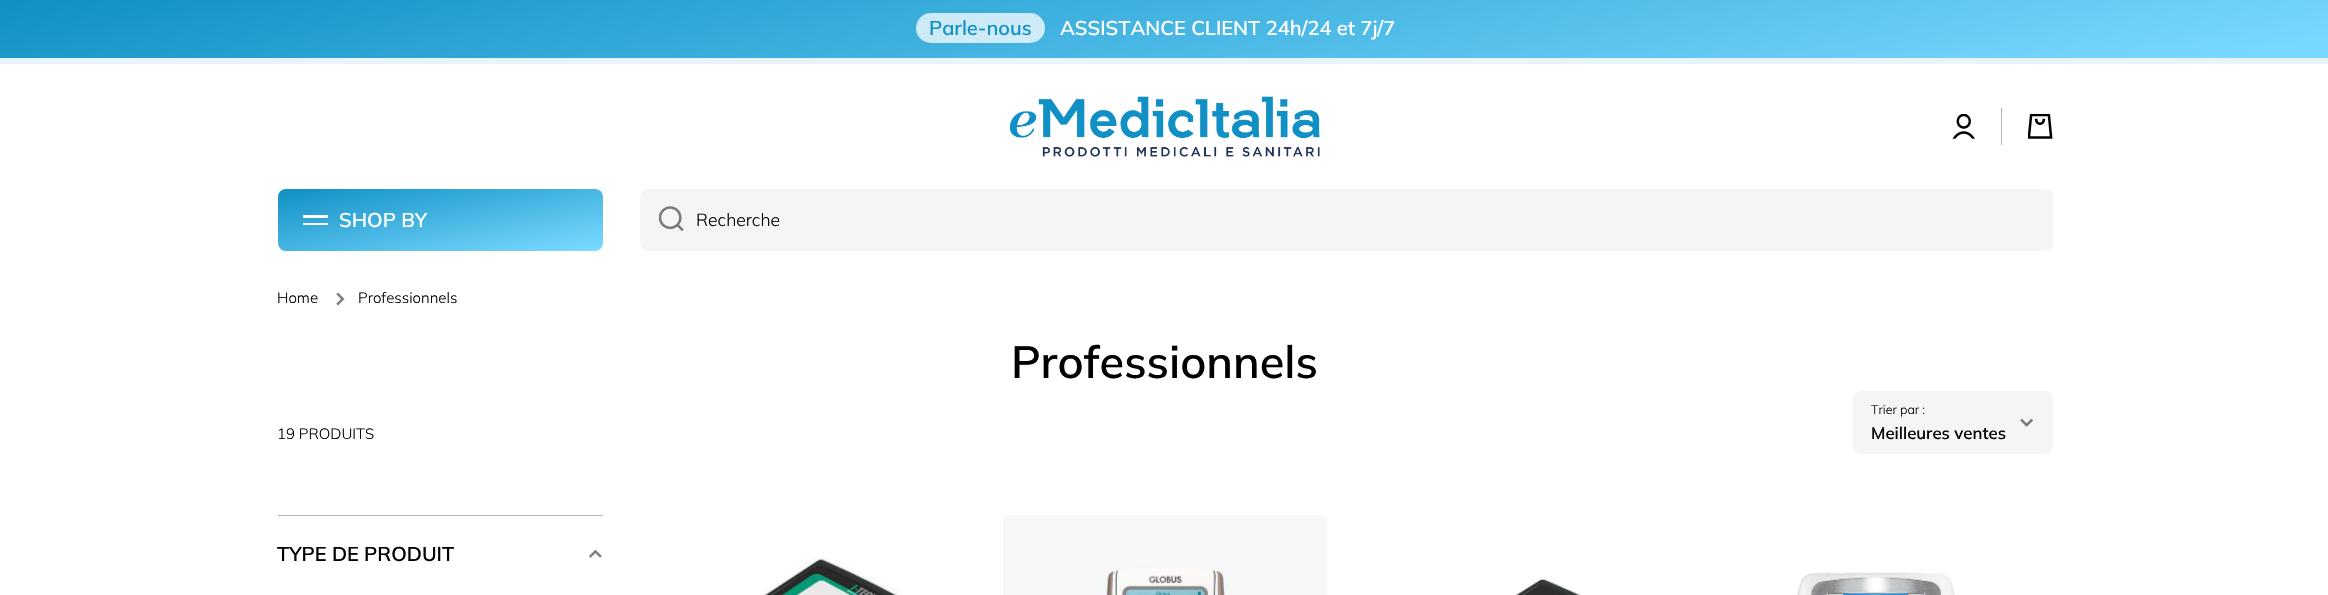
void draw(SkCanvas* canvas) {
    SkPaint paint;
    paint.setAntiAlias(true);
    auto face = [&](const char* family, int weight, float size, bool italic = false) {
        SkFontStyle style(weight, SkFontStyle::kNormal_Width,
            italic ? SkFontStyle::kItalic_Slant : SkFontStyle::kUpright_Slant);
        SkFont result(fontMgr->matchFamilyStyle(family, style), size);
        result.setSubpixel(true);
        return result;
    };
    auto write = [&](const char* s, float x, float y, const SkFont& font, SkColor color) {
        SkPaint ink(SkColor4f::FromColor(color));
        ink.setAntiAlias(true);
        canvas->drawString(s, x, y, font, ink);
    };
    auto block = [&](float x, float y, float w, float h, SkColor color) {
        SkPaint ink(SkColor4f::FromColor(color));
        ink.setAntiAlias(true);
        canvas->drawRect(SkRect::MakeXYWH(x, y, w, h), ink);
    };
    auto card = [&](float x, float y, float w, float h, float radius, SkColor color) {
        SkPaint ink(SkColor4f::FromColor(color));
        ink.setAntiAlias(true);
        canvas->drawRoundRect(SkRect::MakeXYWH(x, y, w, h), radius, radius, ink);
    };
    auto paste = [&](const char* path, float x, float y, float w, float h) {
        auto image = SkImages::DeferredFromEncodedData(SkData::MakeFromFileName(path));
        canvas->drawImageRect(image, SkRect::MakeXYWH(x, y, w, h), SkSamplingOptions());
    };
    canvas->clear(SK_ColorWHITE);
    {
        const SkColor colors[] = {SkColorSetRGB(16, 144, 196), SkColorSetRGB(120, 216, 255)};
        const float stops[] = {0, 0.96f};
        const SkPoint ends[] = {{1117, -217}, {1212, 275}};
        paint.setShader(SkGradientShader::MakeLinear(ends, colors, stops, 2, SkTileMode::kClamp));
        paint.setAlpha(255);
    }
    canvas->drawRect(SkRect::MakeXYWH(0, 0, 2328, 58), paint);
    card(916, 13, 129, 30, 15, SkColorSetARGB(189, 255, 255, 255));
    auto kFont1 = face("Muli", 600, 20);
    write("Parle-nous", 929, 35, kFont1, SkColorSetRGB(16, 144, 196));
    write("ASSISTANCE CLIENT 24h/24 et 7j/7", 1060, 35, kFont1, SK_ColorWHITE);
    block(0, 58, 2328, 6, SkColorSetRGB(232, 244, 249));
    paste("pic1.png", 1009, 96, 311, 61);
    paste("pic2.png", 1952, 114, 23, 25);
    block(2001, 108, 1, 37, SkColorSetRGB(179, 179, 179));
    paste("pic3.png", 2028, 114, 25, 25);
    {
        const SkColor colors[] = {SkColorSetRGB(16, 144, 196), SkColorSetRGB(120, 216, 255)};
        const float stops[] = {0, 0.96f};
        const SkPoint ends[] = {{428, 159}, {452, 281}};
        paint.setShader(SkGradientShader::MakeLinear(ends, colors, stops, 2, SkTileMode::kClamp));
        paint.setAlpha(255);
    }
    canvas->drawRoundRect(SkRect::MakeXYWH(278, 189, 325, 62), 8, 8, paint);
    block(303, 215, 25, 3, SK_ColorWHITE);
    block(303, 223, 25, 2, SK_ColorWHITE);
    write("SHOP BY", 339, 227, kFont1, SK_ColorWHITE);
    card(640, 189, 1413, 62, 8, SkColorSetRGB(245, 245, 245));
    paste("pic4.png", 659, 206, 25, 25);
    auto kFont2 = face("Muli", 300, 17.5f);
    write("Recherche", 696, 226, kFont2, SK_ColorBLACK);
    auto kFont3 = face("Muli", 300, 15);
    write("Home", 277, 303, kFont3, SK_ColorBLACK);
    paste("pic5.png", 336, 292, 9, 14);
    write("Professionnels", 358, 303, kFont3, SK_ColorBLACK);
    auto kFont4 = face("Muli", 600, 45);
    write("Professionnels", 1011, 378, kFont4, SK_ColorBLACK);
    write("19 PRODUITS", 277, 439, kFont3, SK_ColorBLACK);
    card(1853, 391, 200, 63, 8, SkColorSetRGB(245, 245, 245));
    auto kFont5 = face("Muli", 300, 12.5f);
    write("Trier par :", 1871, 414, kFont5, SK_ColorBLACK);
    paste("pic6.png", 2020, 418, 13, 9);
    auto kFont6 = face("Muli", 600, 16.75f);
    write("Meilleures ventes", 1871, 439, kFont6, SK_ColorBLACK);
    block(278, 515, 325, 1, SkColorSetRGB(179, 179, 179));
    write("TYPE DE PRODUIT", 277, 561, kFont1, SK_ColorBLACK);
    paste("pic7.png", 589, 549, 13, 9);
    paste("pic8.png", 761, 557, 142, 38);
    paste("pic9.png", 1003, 515, 325, 80);
    paste("pic10.png", 1515, 578, 66, 17);
    paste("pic11.png", 1797, 572, 158, 23);
}
